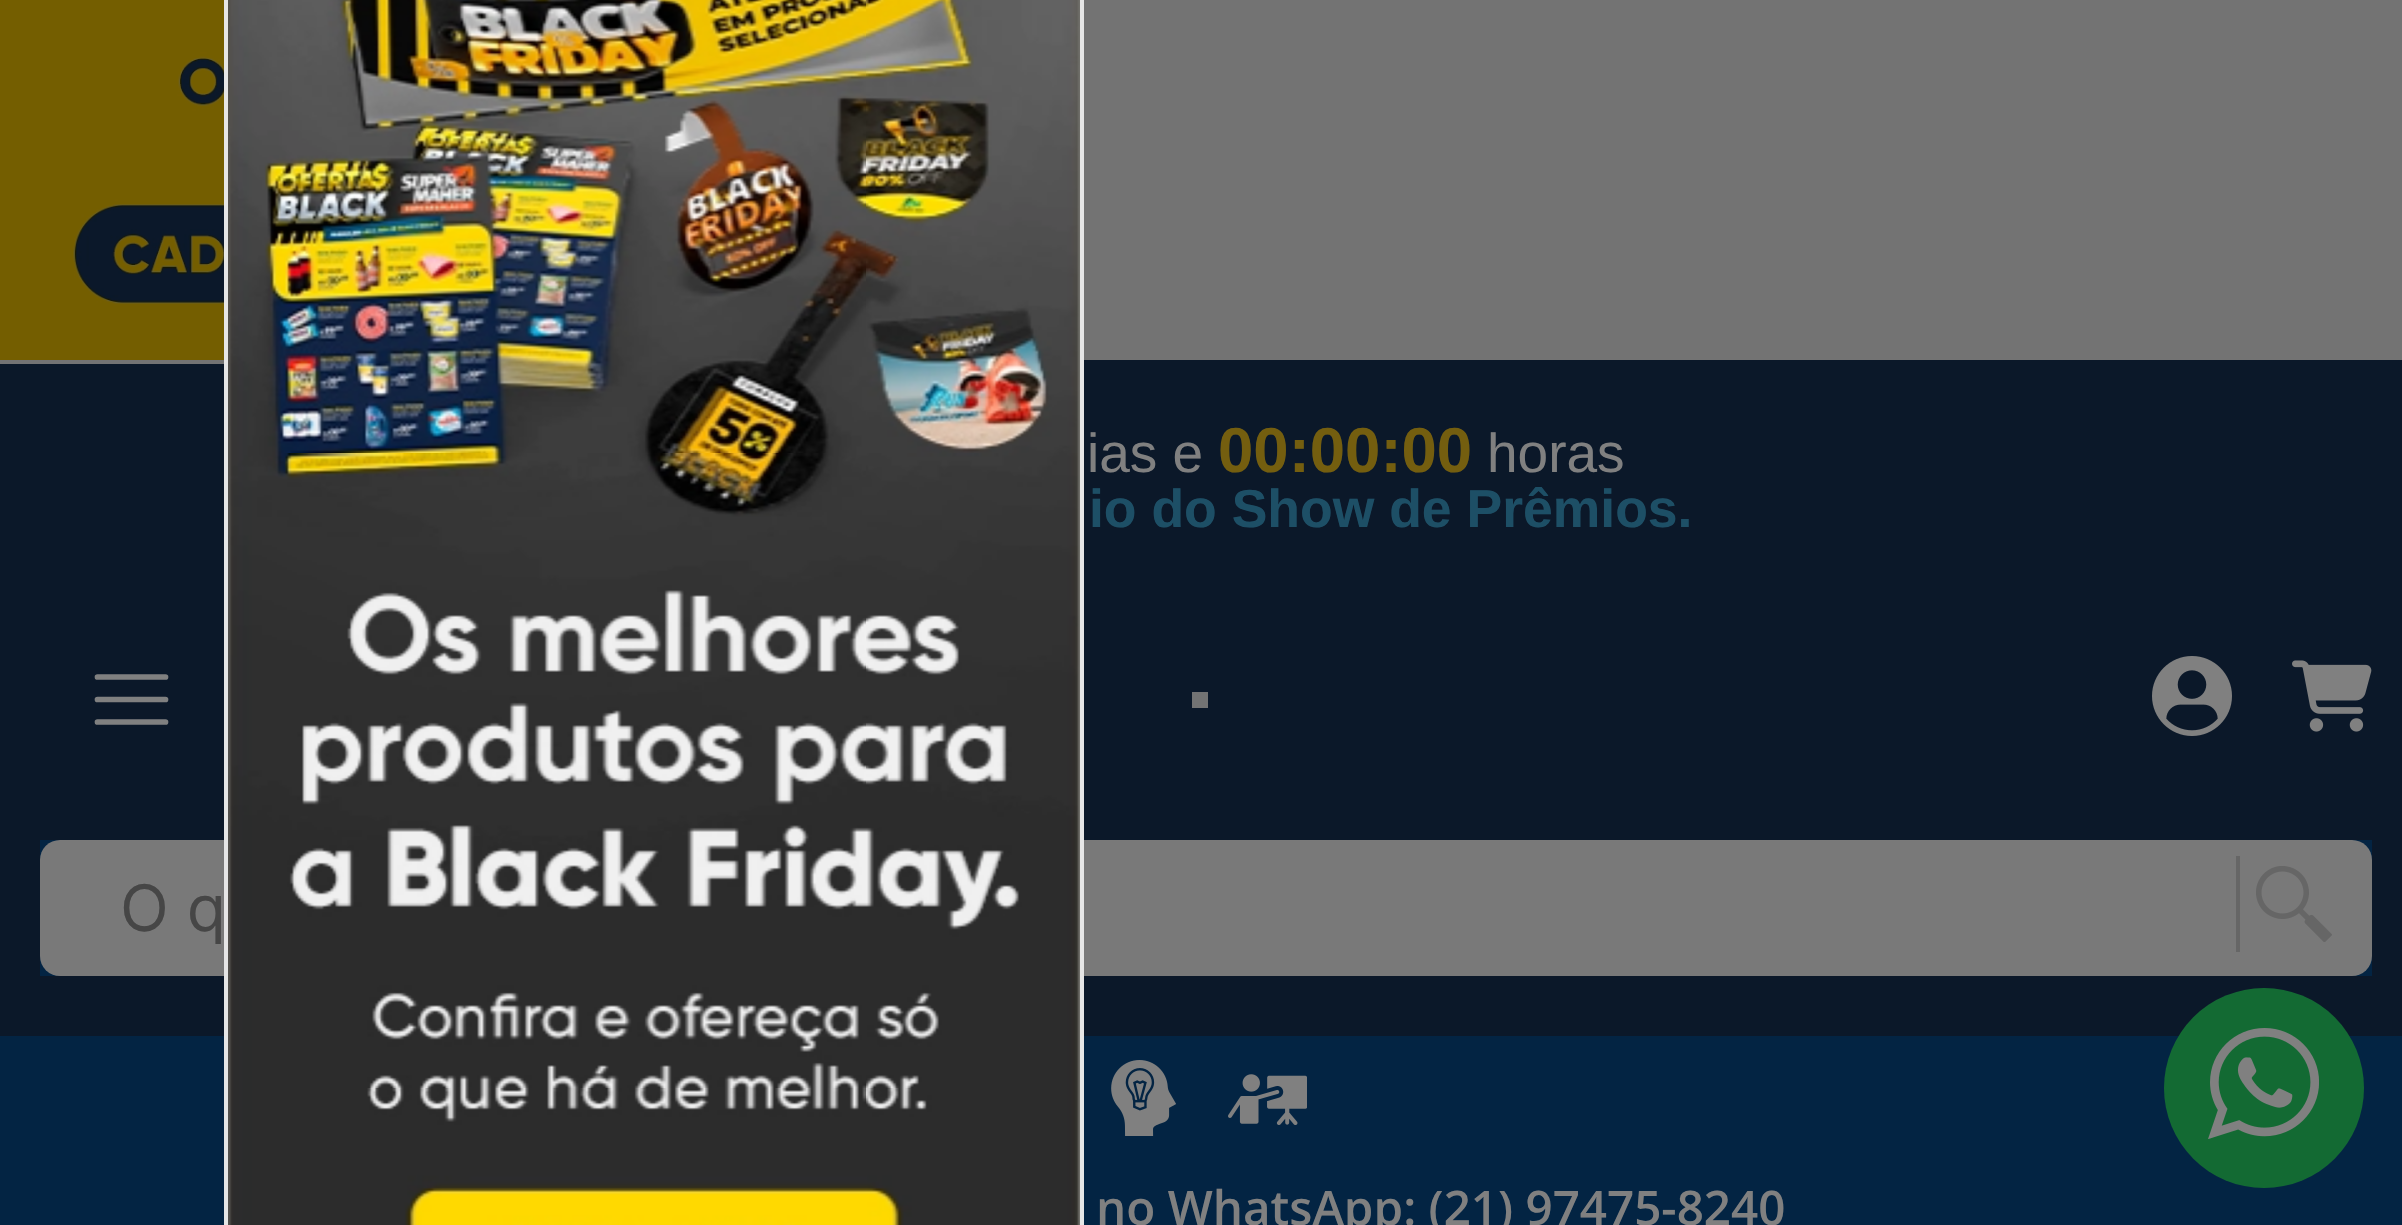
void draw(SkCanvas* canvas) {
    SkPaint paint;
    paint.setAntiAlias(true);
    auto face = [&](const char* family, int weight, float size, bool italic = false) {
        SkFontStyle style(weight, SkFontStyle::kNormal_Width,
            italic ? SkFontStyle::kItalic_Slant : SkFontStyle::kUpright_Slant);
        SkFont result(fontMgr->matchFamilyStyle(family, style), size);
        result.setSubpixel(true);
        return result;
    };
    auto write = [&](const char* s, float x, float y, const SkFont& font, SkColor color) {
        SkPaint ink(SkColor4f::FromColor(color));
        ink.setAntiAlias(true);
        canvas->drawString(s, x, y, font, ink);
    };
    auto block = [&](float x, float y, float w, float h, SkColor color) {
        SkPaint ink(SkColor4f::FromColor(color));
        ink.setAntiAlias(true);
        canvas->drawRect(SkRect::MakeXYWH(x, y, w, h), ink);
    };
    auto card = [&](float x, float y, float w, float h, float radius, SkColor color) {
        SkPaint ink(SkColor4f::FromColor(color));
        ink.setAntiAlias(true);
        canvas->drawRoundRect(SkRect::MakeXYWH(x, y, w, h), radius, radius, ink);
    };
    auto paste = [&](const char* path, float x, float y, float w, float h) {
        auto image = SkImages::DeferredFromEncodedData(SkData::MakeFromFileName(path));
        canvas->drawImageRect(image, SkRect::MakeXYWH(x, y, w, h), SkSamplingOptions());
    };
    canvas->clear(SkColorSetRGB(115, 115, 115));
    block(0, 360, 2402, 676, SkColorSetRGB(11, 24, 41));
    block(40, 840, 2332, 136, SkColorSetRGB(3, 36, 67));
    card(40, 840, 2332, 136, 20, SkColorSetRGB(121, 121, 121));
    block(0, 1036, 2402, 189, SkColorSetRGB(3, 36, 67));
    paste("pic1.png", 224, 0, 860, 1225);
    paste("pic2.png", 0, 0, 224, 364);
    auto kFont1 = face("Liberation Sans", 400, 55);
    write("ias e", 1087, 472, kFont1, SkColorSetRGB(128, 128, 128));
    auto kFont2 = face("Liberation Sans", 700, 63.5f);
    write("00:00:00", 1218, 472, kFont2, SkColorSetRGB(116, 94, 15));
    write("horas", 1487, 472, kFont1, SkColorSetRGB(128, 128, 128));
    auto kFont3 = face("Liberation Sans", 700, 53.5f);
    write("io do Show de Prêmios.", 1089, 527, kFont3, SkColorSetRGB(29, 79, 102));
    paint.setStyle(SkPaint::kStroke_Style);
    paint.setStrokeWidth(5.7f);
    paint.setStrokeCap(SkPaint::kRound_Cap);
    paint.setStrokeJoin(SkPaint::kRound_Join);
    paint.setColor(SkColorSetRGB(128, 128, 128));
    canvas->drawPath(SkPathBuilder().moveTo(97.5f, 677).lineTo(165.5f, 677).moveTo(97.5f, 699.5f).lineTo(165.5f, 699.5f).moveTo(97.5f, 722).lineTo(165.5f, 722).detach(), paint);
    block(1192, 692, 16, 16, SkColorSetRGB(115, 115, 115));
    paste("pic3.png", 2152, 656, 80, 80);
    paste("pic4.png", 2292, 660, 80, 72);
    auto kFont4 = face("Inter", 400, 64);
    write("O q", 120, 931, kFont4, SkColorSetRGB(70, 70, 70));
    block(2236, 856, 4, 96, SkColorSetRGB(102, 102, 102));
    paste("pic5.png", 2256, 866, 76, 76);
    paste("pic6.png", 1111, 1060, 65, 76);
    paste("pic7.png", 1228, 1074, 79, 51);
    auto kFont5 = face("Open Sans", 600, 47.6f);
    write("no WhatsApp: (21) 97475-8240", 1096, 1225, kFont5, SkColorSetRGB(128, 128, 128));
    paint.setStyle(SkPaint::kFill_Style);
    paint.setColor(SkColorSetRGB(19, 106, 51));
    canvas->drawCircle(2264, 1088, 100, paint);
    paste("pic8.png", 2208, 1028, 111, 111);
}
